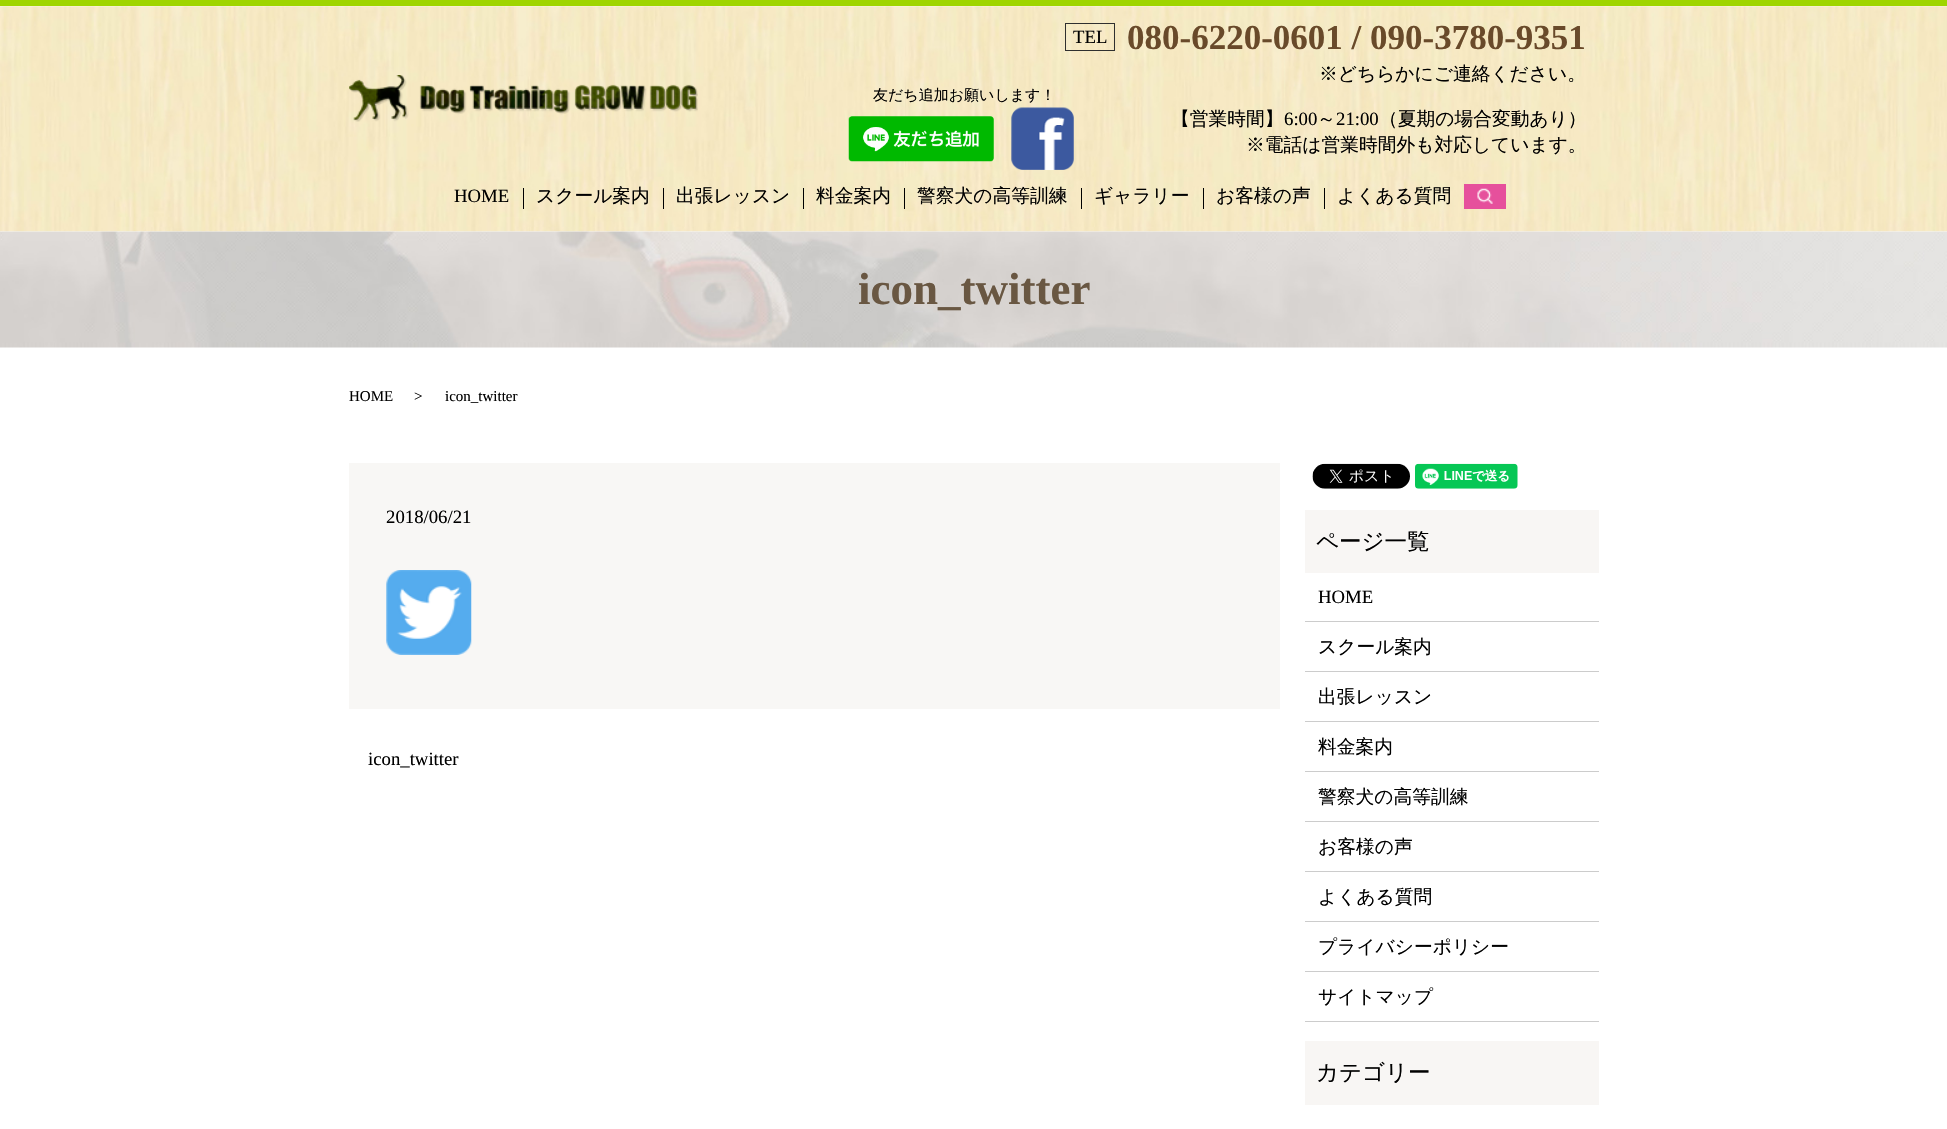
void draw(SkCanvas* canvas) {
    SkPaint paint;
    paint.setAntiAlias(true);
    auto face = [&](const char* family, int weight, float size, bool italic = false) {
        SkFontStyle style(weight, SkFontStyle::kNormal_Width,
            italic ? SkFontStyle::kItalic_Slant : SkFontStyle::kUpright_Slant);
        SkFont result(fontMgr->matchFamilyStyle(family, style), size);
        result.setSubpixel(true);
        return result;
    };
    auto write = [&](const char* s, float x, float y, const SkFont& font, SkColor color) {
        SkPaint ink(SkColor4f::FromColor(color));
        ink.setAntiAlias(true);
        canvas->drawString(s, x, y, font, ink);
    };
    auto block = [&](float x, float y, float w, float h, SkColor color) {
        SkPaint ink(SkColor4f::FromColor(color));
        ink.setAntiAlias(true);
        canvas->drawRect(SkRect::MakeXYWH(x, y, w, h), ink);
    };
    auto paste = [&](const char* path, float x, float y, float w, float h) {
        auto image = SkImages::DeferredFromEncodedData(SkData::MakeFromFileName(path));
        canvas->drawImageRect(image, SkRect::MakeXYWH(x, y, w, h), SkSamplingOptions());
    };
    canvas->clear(SK_ColorWHITE);
    paste("pic6.png", 0, 231, 1947, 117);
    paste("pic1.png", 0, 6, 1947, 226);
    block(0, 0, 1947, 6, SkColorSetRGB(159, 213, 0));
    paste("pic2.png", 349, 75, 349, 47);
    auto kFont1 = face("WenQuanYi Zen Hei", 500, 15);
    write("友だち追加お願いします！", 873, 100, kFont1, SK_ColorBLACK);
    paste("pic3.png", 848, 116, 146, 46);
    paste("pic4.png", 1011, 107, 63, 63);
    paint.setStyle(SkPaint::kStroke_Style);
    paint.setStrokeWidth(1);
    paint.setColor(SkColorSetRGB(47, 47, 47));
    canvas->drawRect(SkRect::MakeXYWH(1065.5f, 23.5f, 49, 27), paint);
    auto kFont2 = face("Liberation Serif", 400, 18.75f);
    write("TEL", 1073, 43, kFont2, SK_ColorBLACK);
    auto kFont3 = face("Liberation Serif", 700, 35);
    write("080-6220-0601 / 090-3780-9351", 1127, 49, kFont3, SkColorSetRGB(105, 74, 42));
    auto kFont4 = face("WenQuanYi Zen Hei", 500, 18.75f);
    write("※どちらかにご連絡ください。", 1319, 80, kFont4, SK_ColorBLACK);
    write("【営業時間】", 1171, 125, kFont4, SK_ColorBLACK);
    write("6:00", 1284, 125, kFont2, SK_ColorBLACK);
    write("～", 1317, 125, kFont4, SK_ColorBLACK);
    write("21:00", 1336, 125, kFont2, SK_ColorBLACK);
    write("（夏期の場合変動あり）", 1379, 125, kFont4, SK_ColorBLACK);
    write("※電話は営業時間外も対応しています。", 1246, 151, kFont4, SK_ColorBLACK);
    write("HOME", 454, 202, kFont2, SK_ColorBLACK);
    block(523, 188, 1, 21, SK_ColorBLACK);
    write("スクール案内", 536, 202, kFont4, SK_ColorBLACK);
    block(663, 188, 1, 21, SK_ColorBLACK);
    write("出張レッスン", 676, 202, kFont4, SK_ColorBLACK);
    block(803, 188, 1, 21, SK_ColorBLACK);
    write("料金案内", 816, 202, kFont4, SK_ColorBLACK);
    block(904, 188, 1, 21, SK_ColorBLACK);
    write("警察犬の高等訓練", 917, 202, kFont4, SK_ColorBLACK);
    block(1081, 188, 1, 21, SK_ColorBLACK);
    write("ギャラリー", 1094, 202, kFont4, SK_ColorBLACK);
    block(1203, 188, 1, 21, SK_ColorBLACK);
    write("お客様の声", 1216, 202, kFont4, SK_ColorBLACK);
    block(1324, 188, 1, 21, SK_ColorBLACK);
    write("よくある質問", 1337, 202, kFont4, SK_ColorBLACK);
    block(1464, 184, 42, 25, SkColorSetRGB(230, 80, 156));
    paste("pic5.png", 1477, 188, 16, 16);
    auto kFont5 = face("Liberation Serif", 700, 45);
    write("icon_twitter", 858, 304, kFont5, SkColorSetRGB(105, 87, 66));
    auto kFont6 = face("Liberation Serif", 400, 15);
    write("HOME", 349, 401, kFont6, SK_ColorBLACK);
    write(">", 414, 401, kFont6, SK_ColorBLACK);
    write("icon_twitter", 445, 401, kFont6, SK_ColorBLACK);
    block(349, 463, 931, 246, SkColorSetRGB(248, 247, 245));
    write("2018/06/21", 386, 523, kFont2, SK_ColorBLACK);
    paste("pic7.png", 386, 570, 86, 85);
    write("icon_twitter", 368, 765, kFont2, SK_ColorBLACK);
    paste("pic8.png", 1312, 463, 98, 26);
    paste("pic9.png", 1415, 463, 103, 26);
    block(1305, 510, 294, 63, SkColorSetRGB(248, 246, 244));
    auto kFont7 = face("WenQuanYi Zen Hei", 500, 22.5f);
    write("ページ一覧", 1316, 549, kFont7, SK_ColorBLACK);
    block(1305, 621, 294, 1, SkColorSetRGB(204, 204, 204));
    write("HOME", 1318, 603, kFont2, SK_ColorBLACK);
    block(1305, 671, 294, 1, SkColorSetRGB(204, 204, 204));
    write("スクール案内", 1318, 653, kFont4, SK_ColorBLACK);
    block(1305, 721, 294, 1, SkColorSetRGB(204, 204, 204));
    write("出張レッスン", 1318, 703, kFont4, SK_ColorBLACK);
    block(1305, 771, 294, 1, SkColorSetRGB(204, 204, 204));
    write("料金案内", 1318, 753, kFont4, SK_ColorBLACK);
    block(1305, 821, 294, 1, SkColorSetRGB(204, 204, 204));
    write("警察犬の高等訓練", 1318, 803, kFont4, SK_ColorBLACK);
    block(1305, 871, 294, 1, SkColorSetRGB(204, 204, 204));
    write("お客様の声", 1318, 853, kFont4, SK_ColorBLACK);
    block(1305, 921, 294, 1, SkColorSetRGB(204, 204, 204));
    write("よくある質問", 1318, 903, kFont4, SK_ColorBLACK);
    block(1305, 971, 294, 1, SkColorSetRGB(204, 204, 204));
    write("プライバシーポリシー", 1318, 953, kFont4, SK_ColorBLACK);
    block(1305, 1021, 294, 1, SkColorSetRGB(204, 204, 204));
    write("サイトマップ", 1318, 1003, kFont4, SK_ColorBLACK);
    block(1305, 1041, 294, 64, SkColorSetRGB(248, 246, 244));
    write("カテゴリー", 1316, 1080, kFont7, SK_ColorBLACK);
}
